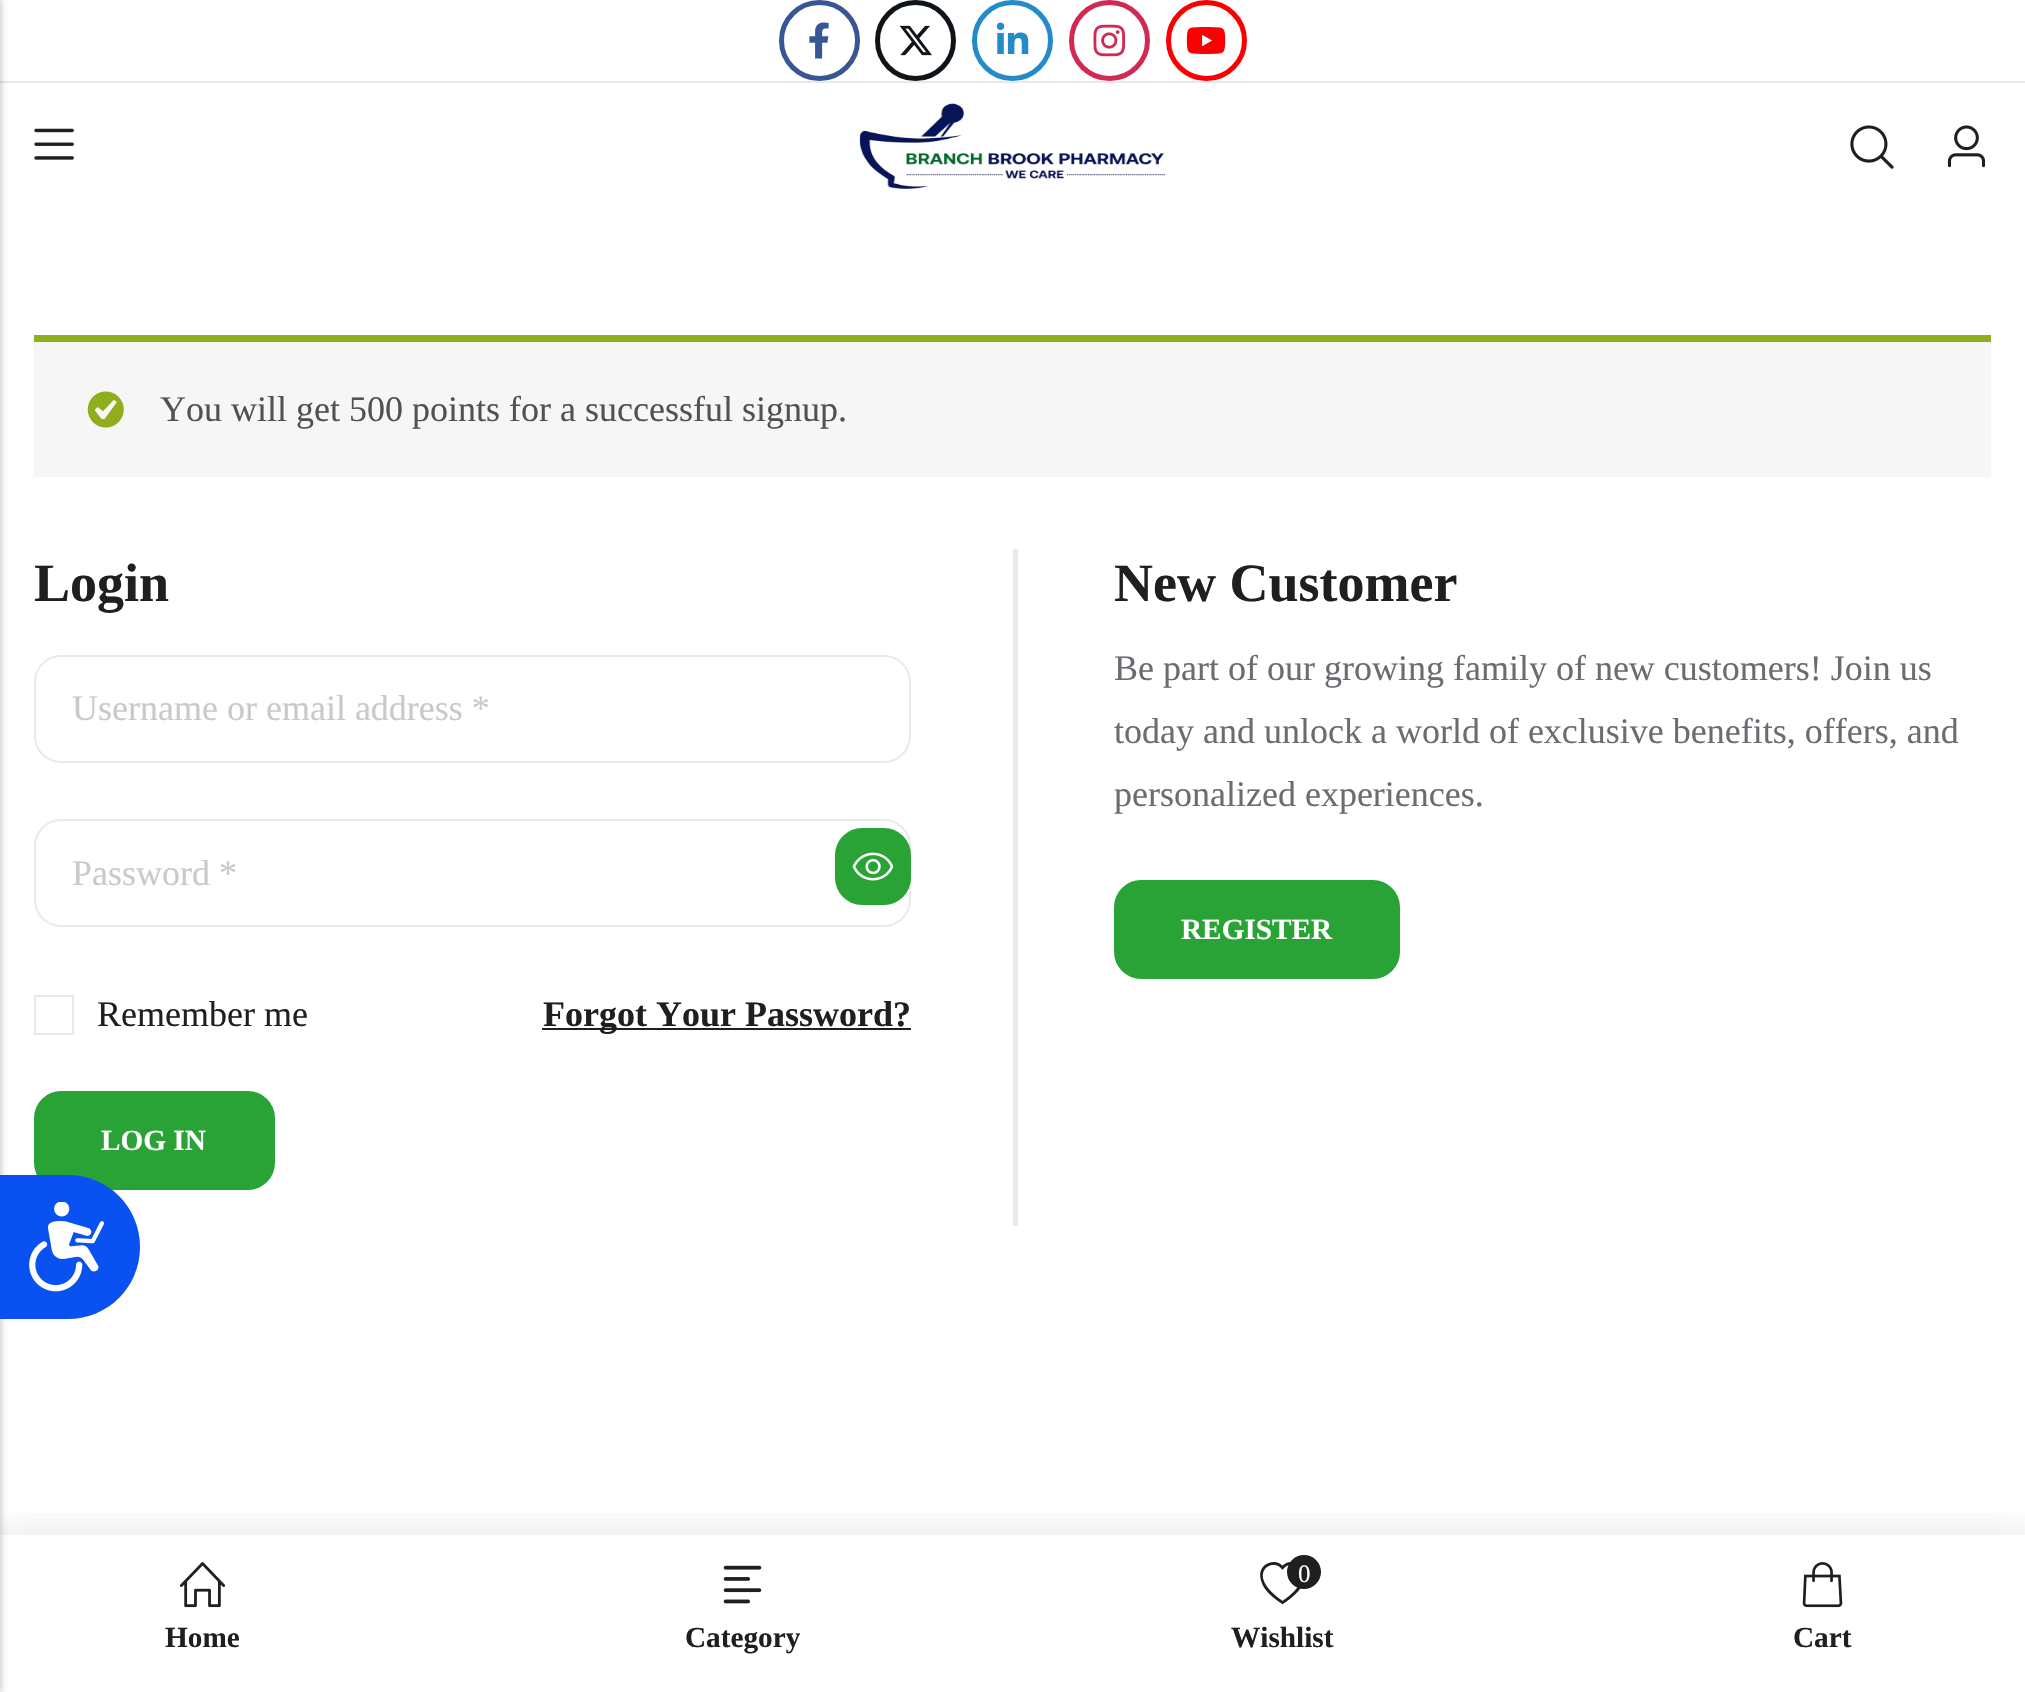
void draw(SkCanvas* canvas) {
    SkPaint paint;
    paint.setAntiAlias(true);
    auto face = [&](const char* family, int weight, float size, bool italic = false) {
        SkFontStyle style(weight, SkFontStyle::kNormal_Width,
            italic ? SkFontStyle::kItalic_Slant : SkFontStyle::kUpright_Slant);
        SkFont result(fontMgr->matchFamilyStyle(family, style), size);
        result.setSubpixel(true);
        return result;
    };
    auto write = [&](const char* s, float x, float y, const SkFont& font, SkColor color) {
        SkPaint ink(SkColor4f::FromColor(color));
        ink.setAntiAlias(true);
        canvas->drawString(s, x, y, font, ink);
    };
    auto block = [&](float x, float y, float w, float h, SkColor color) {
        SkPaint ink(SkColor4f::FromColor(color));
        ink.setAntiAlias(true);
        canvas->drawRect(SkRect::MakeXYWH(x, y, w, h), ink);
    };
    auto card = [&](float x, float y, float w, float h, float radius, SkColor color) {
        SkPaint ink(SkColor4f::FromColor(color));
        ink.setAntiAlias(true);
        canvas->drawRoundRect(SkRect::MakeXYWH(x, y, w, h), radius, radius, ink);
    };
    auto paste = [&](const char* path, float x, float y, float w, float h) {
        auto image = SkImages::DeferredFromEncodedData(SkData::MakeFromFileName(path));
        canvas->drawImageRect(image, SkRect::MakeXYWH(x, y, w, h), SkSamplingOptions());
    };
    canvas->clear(SK_ColorWHITE);
    block(0, 81, 2025, 2, SkColorSetRGB(233, 233, 233));
    paint.setColor(SkColorSetARGB(38, 0, 0, 0));
    paint.setMaskFilter(SkMaskFilter::MakeBlur(kNormal_SkBlurStyle, 3.5f));
    canvas->drawRect(SkRect::MakeXYWH(-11, 0, 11, 1692), paint);
    paint.setMaskFilter(nullptr);
    paint.setMaskFilter(SkMaskFilter::MakeBlur(kNormal_SkBlurStyle, 3.5f));
    canvas->drawRect(SkRect::MakeXYWH(-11, 0, 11, 1692), paint);
    paint.setMaskFilter(nullptr);
    paint.setStyle(SkPaint::kStroke_Style);
    paint.setStrokeWidth(5);
    paint.setColor(SkColorSetRGB(56, 86, 147));
    canvas->drawCircle(819.5f, 40.5f, 38, paint);
    paste("pic1.png", 809, 22, 20, 37);
    paint.setColor(SkColorSetRGB(15, 20, 25));
    canvas->drawCircle(915.5f, 40.5f, 38, paint);
    paste("pic2.png", 899, 25, 33, 31);
    paint.setColor(SkColorSetRGB(35, 140, 200));
    canvas->drawCircle(1012.5f, 40.5f, 38, paint);
    paste("pic3.png", 996, 22, 33, 32);
    paint.setColor(SkColorSetRGB(208, 42, 82));
    canvas->drawCircle(1109.5f, 40.5f, 38, paint);
    paste("pic4.png", 1093, 24, 32, 33);
    paint.setColor(SkColorSetRGB(249, 0, 2));
    canvas->drawCircle(1206.5f, 40.5f, 38, paint);
    paste("pic5.png", 1186, 27, 40, 27);
    paste("pic6.png", 34, 128, 40, 32);
    paste("pic7.png", 859, 103, 307, 86);
    paste("pic8.png", 1850, 125, 44, 44);
    paste("pic9.png", 1947, 125, 39, 43);
    block(34, 342, 1957, 135, SkColorSetRGB(247, 246, 247));
    block(34, 335, 1957, 7, SkColorSetRGB(143, 174, 27));
    paste("pic10.png", 87, 391, 37, 37);
    auto kFont1 = face("Liberation Serif", 400, 36);
    write("You will get 500 points for a successful signup.", 160, 421, kFont1, SkColorSetRGB(81, 81, 81));
    block(1013, 549, 5, 677, SkColorSetRGB(233, 233, 233));
    auto kFont2 = face("Liberation Serif", 700, 54);
    write("Login", 34, 601, kFont2, SkColorSetRGB(31, 31, 31));
    paint.setStrokeWidth(2);
    paint.setColor(SkColorSetRGB(233, 233, 233));
    canvas->drawRoundRect(SkRect::MakeXYWH(35, 656, 875, 106), 26, 26, paint);
    write("Username or email address *", 72, 720, kFont1, SkColorSetRGB(201, 201, 201));
    canvas->drawRoundRect(SkRect::MakeXYWH(35, 820, 875, 106), 26, 26, paint);
    write("Password *", 72, 885, kFont1, SkColorSetRGB(201, 201, 201));
    card(835, 828, 76, 77, 27, SkColorSetRGB(42, 163, 54));
    paste("pic11.png", 852, 852, 42, 29);
    canvas->drawRect(SkRect::MakeXYWH(35, 996, 38, 38), paint);
    write("Remember me", 97, 1026, kFont1, SkColorSetRGB(31, 31, 31));
    block(542, 1028, 369, 2, SkColorSetRGB(31, 31, 31));
    auto kFont3 = face("Liberation Serif", 700, 36);
    write("Forgot Your Password?", 543, 1026, kFont3, SkColorSetRGB(31, 31, 31));
    card(34, 1091, 241, 99, 27, SkColorSetRGB(42, 163, 54));
    auto kFont4 = face("Liberation Serif", 700, 29.25f);
    write("LOG IN", 101, 1150, kFont4, SK_ColorWHITE);
    write("New Customer", 1114, 601, kFont2, SkColorSetRGB(31, 31, 31));
    write("Be part of our growing family of new customers! Join us", 1114, 680, kFont1, SkColorSetRGB(105, 108, 112));
    write("today and unlock a world of exclusive benefits, offers, and", 1114, 743, kFont1, SkColorSetRGB(105, 108, 112));
    write("personalized experiences.", 1114, 806, kFont1, SkColorSetRGB(105, 108, 112));
    card(1114, 880, 286, 99, 27, SkColorSetRGB(42, 163, 54));
    write("REGISTER", 1181, 939, kFont4, SK_ColorWHITE);
    paint.setStyle(SkPaint::kFill_Style);
    paint.setColor(SkColorSetRGB(10, 81, 242));
    canvas->drawPath(SkPathBuilder().moveTo(0, 1175).lineTo(68, 1175).cubicTo(108, 1175, 140, 1207, 140, 1247).cubicTo(140, 1287, 108, 1319, 68, 1319).lineTo(0, 1319).close().detach(), paint);
    paste("pic12.png", 29, 1202, 75, 90);
    canvas->save();
    canvas->clipRect(SkRect::MakeXYWH(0, 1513, 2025, 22));
    paint.setColor(SkColorSetARGB(38, 64, 72, 86));
    paint.setMaskFilter(SkMaskFilter::MakeBlur(kNormal_SkBlurStyle, 20));
    canvas->drawRect(SkRect::MakeXYWH(-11, 1535, 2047, 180), paint);
    paint.setMaskFilter(nullptr);
    canvas->restore();
    paste("pic13.png", 179, 1562, 47, 46);
    write("Home", 165, 1647, kFont4, SkColorSetRGB(31, 31, 31));
    paste("pic14.png", 723, 1565, 39, 39);
    write("Category", 685, 1647, kFont4, SkColorSetRGB(31, 31, 31));
    paste("pic15.png", 1260, 1562, 41, 43);
    paint.setColor(SkColorSetRGB(31, 31, 31));
    canvas->drawCircle(1304, 1572, 17, paint);
    auto kFont5 = face("Liberation Serif", 400, 25);
    write("0", 1298, 1582, kFont5, SK_ColorWHITE);
    write("Wishlist", 1231, 1647, kFont4, SkColorSetRGB(31, 31, 31));
    paste("pic16.png", 1802, 1562, 41, 46);
    write("Cart", 1793, 1647, kFont4, SkColorSetRGB(31, 31, 31));
}
